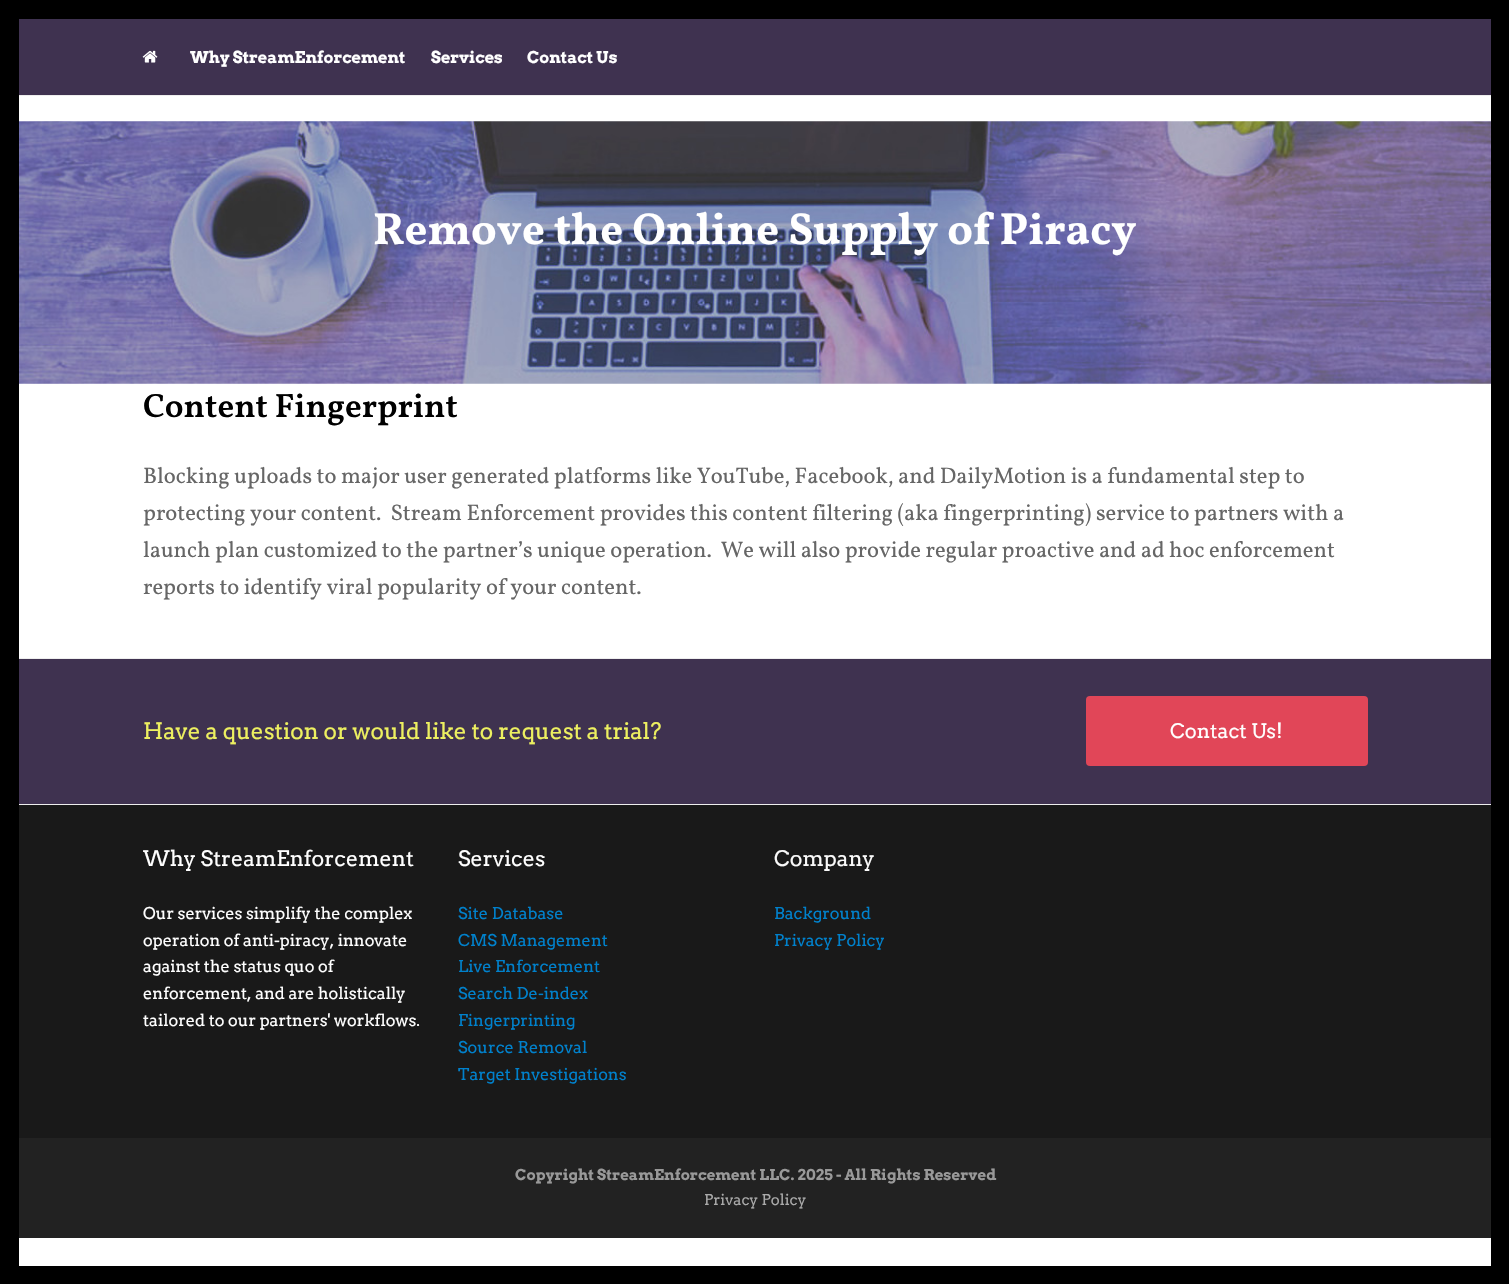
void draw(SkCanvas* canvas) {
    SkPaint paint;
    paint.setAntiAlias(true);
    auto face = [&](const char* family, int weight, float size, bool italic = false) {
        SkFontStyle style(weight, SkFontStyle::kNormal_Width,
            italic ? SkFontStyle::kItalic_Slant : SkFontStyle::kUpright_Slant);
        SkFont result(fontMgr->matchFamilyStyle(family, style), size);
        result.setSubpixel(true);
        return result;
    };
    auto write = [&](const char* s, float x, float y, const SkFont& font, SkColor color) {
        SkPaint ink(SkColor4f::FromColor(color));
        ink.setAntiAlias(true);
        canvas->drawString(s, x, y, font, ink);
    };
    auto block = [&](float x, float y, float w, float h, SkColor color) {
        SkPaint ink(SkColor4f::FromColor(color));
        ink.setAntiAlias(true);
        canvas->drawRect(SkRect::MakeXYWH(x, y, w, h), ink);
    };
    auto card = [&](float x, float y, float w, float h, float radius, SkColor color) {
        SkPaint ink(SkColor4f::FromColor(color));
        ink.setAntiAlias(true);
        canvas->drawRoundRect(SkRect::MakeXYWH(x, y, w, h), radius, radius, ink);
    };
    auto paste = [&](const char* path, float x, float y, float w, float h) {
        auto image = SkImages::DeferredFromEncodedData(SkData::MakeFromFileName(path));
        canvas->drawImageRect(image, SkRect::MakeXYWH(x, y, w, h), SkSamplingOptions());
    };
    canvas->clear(SK_ColorWHITE);
    block(0, 0, 1509, 19, SK_ColorBLACK);
    block(0, 19, 19, 1247, SK_ColorBLACK);
    block(19, 19, 1472, 76, SkColorSetRGB(63, 50, 80));
    block(19, 95, 1472, 1, SkColorSetRGB(238, 238, 238));
    paste("pic1.png", 142, 50, 16, 13);
    auto kFont1 = face("Arvo", 700, 16.25f);
    write("Why StreamEnforcement", 190, 63, kFont1, SK_ColorWHITE);
    write("Services", 431, 63, kFont1, SK_ColorWHITE);
    write("Contact Us", 527, 63, kFont1, SK_ColorWHITE);
    paste("pic2.png", 19, 121, 1472, 263);
    auto kFont2 = face("Vollkorn", 700, 45);
    write("Remove the Online Supply of Piracy", 373, 244, kFont2, SK_ColorWHITE);
    auto kFont3 = face("Vollkorn", 600, 33.75f);
    write("Content Fingerprint", 143, 417, kFont3, SK_ColorBLACK);
    auto kFont4 = face("Vollkorn", 400, 22.5f);
    write("Blocking uploads to major user generated platforms like YouTube, Facebook, and DailyMotion is a fundamental step to", 143, 483, kFont4, SkColorSetRGB(102, 102, 102));
    write("protecting your content.  Stream Enforcement provides this content filtering (aka fingerprinting) service to partners with a", 143, 520, kFont4, SkColorSetRGB(102, 102, 102));
    write("launch plan customized to the partner’s unique operation.  We will also provide regular proactive and ad hoc enforcement", 143, 557, kFont4, SkColorSetRGB(102, 102, 102));
    write("reports to identify viral popularity of your content.", 143, 594, kFont4, SkColorSetRGB(102, 102, 102));
    block(19, 659, 1472, 145, SkColorSetRGB(63, 50, 80));
    block(19, 658, 1472, 1, SkColorSetRGB(238, 238, 238));
    block(19, 804, 1472, 1, SkColorSetRGB(238, 238, 238));
    auto kFont5 = face("Arvo", 400, 22.5f);
    write("Have a question or would like to request a trial?", 143, 739, kFont5, SkColorSetRGB(237, 240, 96));
    card(1086, 696, 282, 70, 4, SkColorSetRGB(225, 70, 88));
    auto kFont6 = face("Arvo", 400, 20);
    write("Contact Us!", 1170, 738, kFont6, SK_ColorWHITE);
    block(19, 805, 1472, 333, SkColorSetRGB(25, 25, 25));
    auto kFont7 = face("Arvo", 400, 21.3f);
    write("Why StreamEnforcement", 143, 866, kFont7, SK_ColorWHITE);
    auto kFont8 = face("Arvo", 400, 16.25f);
    write("Our services simplify the complex", 143, 919, kFont8, SK_ColorWHITE);
    write("operation of anti-piracy, innovate", 143, 946, kFont8, SK_ColorWHITE);
    write("against the status quo of", 143, 972, kFont8, SK_ColorWHITE);
    write("enforcement, and are holistically", 143, 999, kFont8, SK_ColorWHITE);
    write("tailored to our partners' workflows.", 143, 1026, kFont8, SK_ColorWHITE);
    write("Services", 458, 866, kFont7, SK_ColorWHITE);
    write("Site Database", 458, 919, kFont8, SkColorSetRGB(0, 129, 204));
    write("CMS Management", 458, 946, kFont8, SkColorSetRGB(0, 129, 204));
    write("Live Enforcement", 458, 972, kFont8, SkColorSetRGB(0, 129, 204));
    write("Search De-index", 458, 999, kFont8, SkColorSetRGB(0, 129, 204));
    write("Fingerprinting", 458, 1026, kFont8, SkColorSetRGB(0, 129, 204));
    write("Source Removal", 458, 1053, kFont8, SkColorSetRGB(0, 129, 204));
    write("Target Investigations", 458, 1080, kFont8, SkColorSetRGB(0, 129, 204));
    write("Company", 774, 866, kFont7, SkColorSetRGB(249, 249, 249));
    write("Background", 774, 919, kFont8, SkColorSetRGB(0, 129, 204));
    write("Privacy Policy", 774, 946, kFont8, SkColorSetRGB(0, 129, 204));
    block(19, 1138, 1472, 100, SkColorSetRGB(34, 34, 34));
    auto kFont9 = face("Arvo", 700, 15);
    write("Copyright StreamEnforcement LLC. 2025 - All Rights Reserved", 515, 1180, kFont9, SkColorSetRGB(153, 153, 153));
    auto kFont10 = face("Arvo", 400, 15);
    write("Privacy Policy", 704, 1205, kFont10, SkColorSetRGB(170, 170, 170));
    block(1491, 19, 18, 1247, SK_ColorBLACK);
    block(0, 1266, 1509, 18, SK_ColorBLACK);
}
